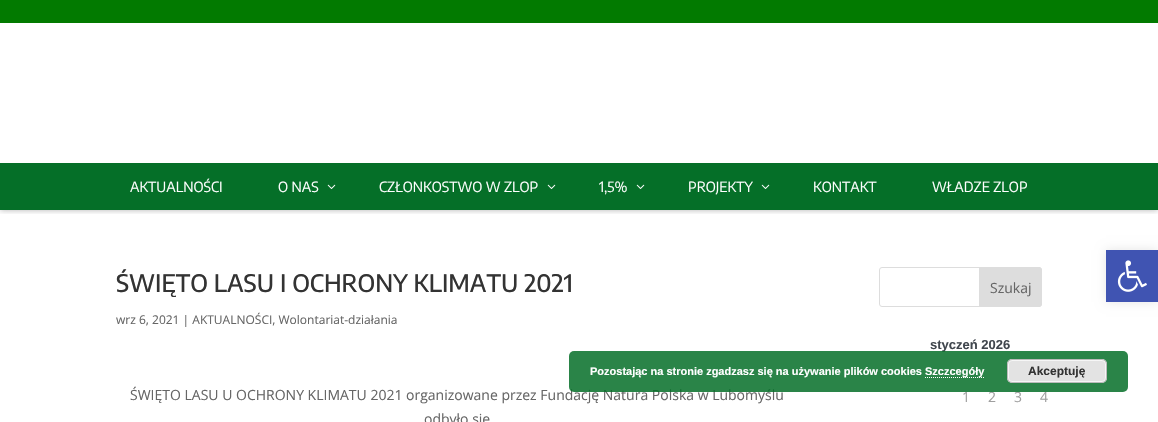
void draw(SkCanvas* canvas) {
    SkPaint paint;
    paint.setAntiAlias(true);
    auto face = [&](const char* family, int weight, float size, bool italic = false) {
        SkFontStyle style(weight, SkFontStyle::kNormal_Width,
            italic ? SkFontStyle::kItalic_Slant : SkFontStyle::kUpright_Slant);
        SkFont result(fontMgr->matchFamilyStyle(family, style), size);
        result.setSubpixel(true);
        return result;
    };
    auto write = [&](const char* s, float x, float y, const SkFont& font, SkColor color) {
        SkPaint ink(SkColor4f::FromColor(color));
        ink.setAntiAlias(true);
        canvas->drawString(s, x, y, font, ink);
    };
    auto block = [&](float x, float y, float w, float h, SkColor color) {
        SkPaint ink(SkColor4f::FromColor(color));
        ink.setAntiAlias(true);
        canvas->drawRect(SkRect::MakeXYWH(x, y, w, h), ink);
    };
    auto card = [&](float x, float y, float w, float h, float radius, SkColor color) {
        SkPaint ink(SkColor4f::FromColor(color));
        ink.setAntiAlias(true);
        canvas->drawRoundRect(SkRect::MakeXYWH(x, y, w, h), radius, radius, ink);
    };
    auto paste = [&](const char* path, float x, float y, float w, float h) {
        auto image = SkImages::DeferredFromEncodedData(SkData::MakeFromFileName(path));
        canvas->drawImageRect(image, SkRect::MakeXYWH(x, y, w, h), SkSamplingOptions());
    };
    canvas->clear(SK_ColorWHITE);
    canvas->save();
    canvas->clipRect(SkRect::MakeXYWH(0, 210, 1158, 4));
    paint.setColor(SkColorSetARGB(77, 0, 0, 0));
    paint.setMaskFilter(SkMaskFilter::MakeBlur(kNormal_SkBlurStyle, 3));
    canvas->drawRect(SkRect::MakeXYWH(0, 23, 1158, 187), paint);
    paint.setMaskFilter(nullptr);
    canvas->restore();
    block(0, 0, 1158, 23, SkColorSetRGB(2, 122, 0));
    block(0, 163, 1158, 47, SkColorSetRGB(5, 111, 40));
    auto kFont1 = face("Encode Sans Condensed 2", 100, 14);
    write("AKTUALNOŚCI", 130, 192, kFont1, SK_ColorWHITE);
    write("O NAS", 278, 192, kFont1, SK_ColorWHITE);
    paste("pic1.png", 327, 184, 9, 5);
    write("CZŁONKOSTWO W ZLOP", 379, 192, kFont1, SK_ColorWHITE);
    paste("pic1.png", 547, 184, 9, 5);
    write("1,5%", 599, 192, kFont1, SK_ColorWHITE);
    paste("pic1.png", 636, 184, 9, 5);
    write("PROJEKTY", 688, 192, kFont1, SK_ColorWHITE);
    paste("pic1.png", 761, 184, 9, 5);
    write("KONTAKT", 813, 192, kFont1, SK_ColorWHITE);
    write("WŁADZE ZLOP", 932, 192, kFont1, SK_ColorWHITE);
    auto kFont2 = face("Encode Sans Condensed", 100, 24);
    write("ŚWIĘTO LASU I OCHRONY KLIMATU 2021", 116, 292, kFont2, SkColorSetRGB(51, 51, 51));
    auto kFont3 = face("Open Sans", 400, 12);
    write("wrz 6, 2021 | AKTUALNOŚCI, Wolontariat-działania", 116, 324, kFont3, SkColorSetRGB(102, 102, 102));
    auto kFont4 = face("Open Sans", 400, 14);
    write("ŚWIĘTO LASU U OCHRONY KLIMATU 2021 organizowane przez Fundację Natura Polska w Lubomyślu", 130, 400, kFont4, SkColorSetRGB(102, 102, 102));
    write("odbyło się", 424, 424, kFont4, SkColorSetRGB(102, 102, 102));
    paint.setStyle(SkPaint::kStroke_Style);
    paint.setStrokeWidth(1);
    paint.setColor(SkColorSetRGB(221, 221, 221));
    canvas->drawRoundRect(SkRect::MakeXYWH(879.5f, 267.5f, 162, 39), 2.5f, 2.5f, paint);
    paint.setStyle(SkPaint::kFill_Style);
    canvas->drawPath(SkPathBuilder().moveTo(979.5f, 267.5f).lineTo(1039, 267.5f).cubicTo(1040.5f, 267.5f, 1041.5f, 268.5f, 1041.5f, 270).lineTo(1041.5f, 304).cubicTo(1041.5f, 305.5f, 1040.5f, 306.5f, 1039, 306.5f).lineTo(979.5f, 306.5f).close().detach(), paint);
    paint.setStyle(SkPaint::kStroke_Style);
    canvas->drawPath(SkPathBuilder().moveTo(979.5f, 267.5f).lineTo(1039, 267.5f).cubicTo(1040.5f, 267.5f, 1041.5f, 268.5f, 1041.5f, 270).lineTo(1041.5f, 304).cubicTo(1041.5f, 305.5f, 1040.5f, 306.5f, 1039, 306.5f).lineTo(979.5f, 306.5f).close().detach(), paint);
    write("Szukaj", 990, 293, kFont4, SkColorSetRGB(102, 102, 102));
    auto kFont5 = face("Liberation Sans", 700, 13);
    write("styczeń 2026", 930, 349, kFont5, SkColorSetRGB(64, 70, 77));
    write("1", 962, 402, kFont4, SkColorSetRGB(159, 159, 159));
    write("2", 988, 402, kFont4, SkColorSetRGB(159, 159, 159));
    write("3", 1014, 402, kFont4, SkColorSetRGB(159, 159, 159));
    write("4", 1040, 402, kFont4, SkColorSetRGB(159, 159, 159));
    paint.setStyle(SkPaint::kFill_Style);
    paint.setColor(SkColorSetARGB(26, 0, 0, 0));
    paint.setMaskFilter(SkMaskFilter::MakeBlur(kNormal_SkBlurStyle, 5));
    canvas->drawRect(SkRect::MakeXYWH(1106, 250, 52, 52), paint);
    paint.setMaskFilter(nullptr);
    block(1106, 250, 52, 52, SkColorSetRGB(64, 84, 178));
    paste("pic2.png", 1117, 260, 30, 32);
    card(569, 351, 559, 41, 5, SkColorSetARGB(217, 5, 111, 40));
    auto kFont6 = face("Liberation Sans", 700, 11);
    write("Pozostając na stronie zgadzasz się na używanie plików cookies", 590, 375, kFont6, SK_ColorWHITE);
    paint.setStyle(SkPaint::kStroke_Style);
    paint.setColor(SK_ColorWHITE);
    paint.setPathEffect(SkDashPathEffect::Make({{1, 1}}, 0));
    canvas->drawPath(SkPathBuilder().moveTo(925, 377.5f).lineTo(984, 377.5f).detach(), paint);
    paint.setPathEffect(nullptr);
    write("Szczcegóły", 925, 375, kFont6, SK_ColorWHITE);
    card(1007, 359, 100, 24, 5, SkColorSetRGB(227, 227, 227));
    paint.setColor(SkColorSetRGB(246, 246, 246));
    canvas->drawRoundRect(SkRect::MakeXYWH(1008.5f, 360.5f, 97, 21), 3.5f, 3.5f, paint);
    paint.setColor(SkColorSetRGB(187, 187, 187));
    canvas->drawRoundRect(SkRect::MakeXYWH(1007.5f, 359.5f, 99, 23), 4.5f, 4.5f, paint);
    auto kFont7 = face("Liberation Sans", 700, 12);
    write("Akceptuję", 1028, 375, kFont7, SkColorSetRGB(51, 51, 51));
}
